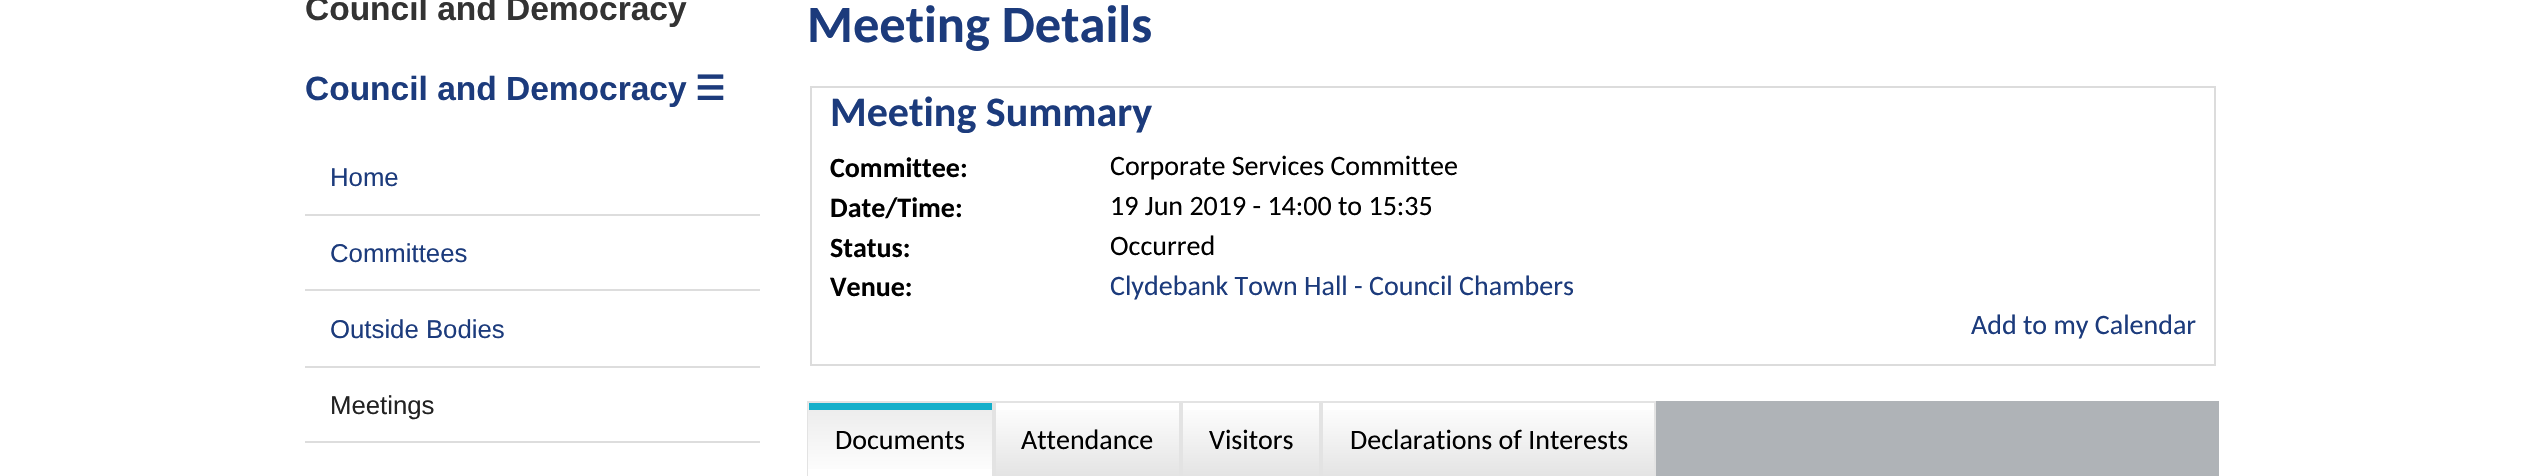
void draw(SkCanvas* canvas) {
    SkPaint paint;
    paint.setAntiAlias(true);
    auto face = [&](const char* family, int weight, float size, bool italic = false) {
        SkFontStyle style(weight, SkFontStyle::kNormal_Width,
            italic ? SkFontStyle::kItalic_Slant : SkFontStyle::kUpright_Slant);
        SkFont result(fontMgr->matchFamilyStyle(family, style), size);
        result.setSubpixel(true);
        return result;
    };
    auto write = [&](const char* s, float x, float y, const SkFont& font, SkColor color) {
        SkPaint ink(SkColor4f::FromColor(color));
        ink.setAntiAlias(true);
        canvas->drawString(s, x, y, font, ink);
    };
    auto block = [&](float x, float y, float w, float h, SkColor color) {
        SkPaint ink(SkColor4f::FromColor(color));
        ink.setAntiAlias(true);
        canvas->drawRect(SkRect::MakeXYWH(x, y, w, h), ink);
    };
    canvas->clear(SK_ColorWHITE);
    auto kFont1 = face("Liberation Sans", 700, 33.5f);
    write("Council and Democracy", 305, 20, kFont1, SkColorSetRGB(51, 51, 51));
    write("Council and Democracy", 305, 100, kFont1, SkColorSetRGB(28, 59, 124));
    auto kFont2 = face("DejaVu Sans", 700, 33.5f);
    write("☰", 695, 100, kFont2, SkColorSetRGB(28, 59, 124));
    block(305, 214, 455, 2, SkColorSetRGB(221, 221, 221));
    auto kFont3 = face("Liberation Sans", 400, 25.75f);
    write("Home", 330, 186, kFont3, SkColorSetRGB(28, 59, 124));
    block(305, 289, 455, 2, SkColorSetRGB(221, 221, 221));
    write("Committees", 330, 262, kFont3, SkColorSetRGB(28, 59, 124));
    block(305, 366, 455, 2, SkColorSetRGB(221, 221, 221));
    write("Outside Bodies", 330, 338, kFont3, SkColorSetRGB(28, 59, 124));
    block(305, 441, 455, 2, SkColorSetRGB(221, 221, 221));
    write("Meetings", 330, 414, kFont3, SkColorSetRGB(34, 34, 34));
    auto kFont4 = face("Carlito", 700, 52.5f);
    write("Meeting Details", 807, 42, kFont4, SkColorSetRGB(28, 59, 124));
    paint.setStyle(SkPaint::kStroke_Style);
    paint.setStrokeWidth(2);
    paint.setColor(SkColorSetRGB(220, 220, 220));
    canvas->drawRect(SkRect::MakeXYWH(811, 87, 1404, 278), paint);
    auto kFont5 = face("Carlito", 700, 42);
    write("Meeting Summary", 830, 126, kFont5, SkColorSetRGB(28, 59, 124));
    auto kFont6 = face("Carlito", 700, 28);
    write("Committee:", 830, 177, kFont6, SK_ColorBLACK);
    auto kFont7 = face("Carlito", 400, 28);
    write("Corporate Services Committee", 1110, 175, kFont7, SK_ColorBLACK);
    write("Date/Time:", 830, 217, kFont6, SK_ColorBLACK);
    write("19 Jun 2019 - 14:00 to 15:35", 1110, 215, kFont7, SK_ColorBLACK);
    write("Status:", 830, 257, kFont6, SK_ColorBLACK);
    write("Occurred", 1110, 255, kFont7, SK_ColorBLACK);
    write("Venue:", 830, 296, kFont6, SK_ColorBLACK);
    write("Clydebank Town Hall - Council Chambers", 1110, 295, kFont7, SkColorSetRGB(28, 59, 124));
    write("Add to my Calendar", 1971, 334, kFont7, SkColorSetRGB(28, 59, 124));
    block(1656, 401, 563, 75, SkColorSetRGB(175, 179, 183));
    paint.setStyle(SkPaint::kFill_Style);
    {
        const SkColor colors[] = {SkColorSetRGB(235, 235, 235), SK_ColorWHITE};
        const float stops[] = {0, 1};
        const SkPoint ends[] = {{900, 403}, {900, 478}};
        paint.setShader(SkGradientShader::MakeLinear(ends, colors, stops, 2, SkTileMode::kClamp));
        paint.setAlpha(255);
    }
    canvas->drawRect(SkRect::MakeXYWH(808, 403, 184, 66), paint);
    block(807, 401, 187, 2, SkColorSetRGB(227, 227, 227));
    paint.setShader(nullptr);
    paint.setColor(SkColorSetRGB(227, 227, 227));
    canvas->drawPath(SkPathBuilder().moveTo(994, 401).lineTo(994, 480).lineTo(992, 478).lineTo(992, 402).close().detach(), paint);
    canvas->drawPath(SkPathBuilder().moveTo(807, 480).lineTo(807, 401).lineTo(808, 402).lineTo(808, 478).close().detach(), paint);
    block(809, 403, 183, 7, SkColorSetRGB(20, 175, 202));
    write("Documents", 835, 449, kFont7, SK_ColorBLACK);
    {
        const SkColor colors[] = {SK_ColorWHITE, SkColorSetRGB(227, 227, 227)};
        const float stops[] = {0, 1};
        const SkPoint ends[] = {{1088, 403}, {1088, 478}};
        paint.setShader(SkGradientShader::MakeLinear(ends, colors, stops, 2, SkTileMode::kClamp));
        paint.setAlpha(255);
    }
    canvas->drawRect(SkRect::MakeXYWH(996, 410, 183, 66), paint);
    paint.setStyle(SkPaint::kStroke_Style);
    paint.setShader(nullptr);
    paint.setColor(SkColorSetRGB(227, 227, 227));
    canvas->drawRect(SkRect::MakeXYWH(995, 402, 185, 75), paint);
    write("Attendance", 1021, 449, kFont7, SK_ColorBLACK);
    paint.setStyle(SkPaint::kFill_Style);
    {
        const SkColor colors[] = {SK_ColorWHITE, SkColorSetRGB(227, 227, 227)};
        const float stops[] = {0, 1};
        const SkPoint ends[] = {{1251, 403}, {1251, 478}};
        paint.setShader(SkGradientShader::MakeLinear(ends, colors, stops, 2, SkTileMode::kClamp));
        paint.setAlpha(255);
    }
    canvas->drawRect(SkRect::MakeXYWH(1183, 410, 136, 66), paint);
    paint.setStyle(SkPaint::kStroke_Style);
    paint.setShader(nullptr);
    paint.setColor(SkColorSetRGB(227, 227, 227));
    canvas->drawRect(SkRect::MakeXYWH(1182, 402, 138, 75), paint);
    write("Visitors", 1209, 449, kFont7, SK_ColorBLACK);
    paint.setStyle(SkPaint::kFill_Style);
    {
        const SkColor colors[] = {SK_ColorWHITE, SkColorSetRGB(227, 227, 227)};
        const float stops[] = {0, 1};
        const SkPoint ends[] = {{1488, 403}, {1488, 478}};
        paint.setShader(SkGradientShader::MakeLinear(ends, colors, stops, 2, SkTileMode::kClamp));
        paint.setAlpha(255);
    }
    canvas->drawRect(SkRect::MakeXYWH(1323, 410, 331, 66), paint);
    paint.setStyle(SkPaint::kStroke_Style);
    paint.setShader(nullptr);
    paint.setColor(SkColorSetRGB(227, 227, 227));
    canvas->drawRect(SkRect::MakeXYWH(1322, 402, 333, 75), paint);
    write("Declarations of Interests", 1350, 449, kFont7, SK_ColorBLACK);
}
